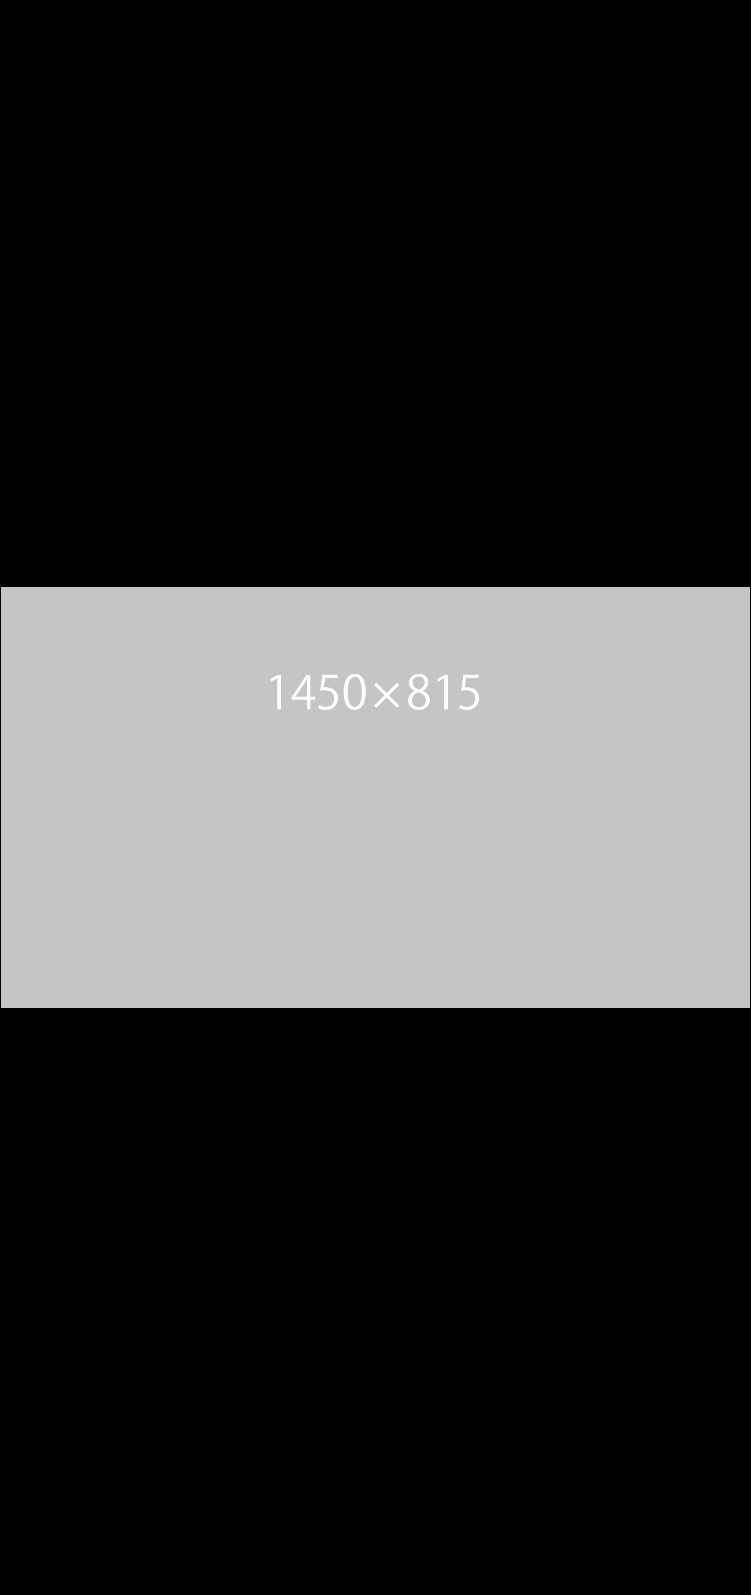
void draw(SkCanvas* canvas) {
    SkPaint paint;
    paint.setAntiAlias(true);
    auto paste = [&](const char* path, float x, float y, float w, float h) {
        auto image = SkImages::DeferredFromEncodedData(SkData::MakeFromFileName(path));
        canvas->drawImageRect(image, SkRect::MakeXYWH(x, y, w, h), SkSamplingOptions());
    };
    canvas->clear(SK_ColorBLACK);
    paste("pic1.png", 1, 586, 749, 422);
}
